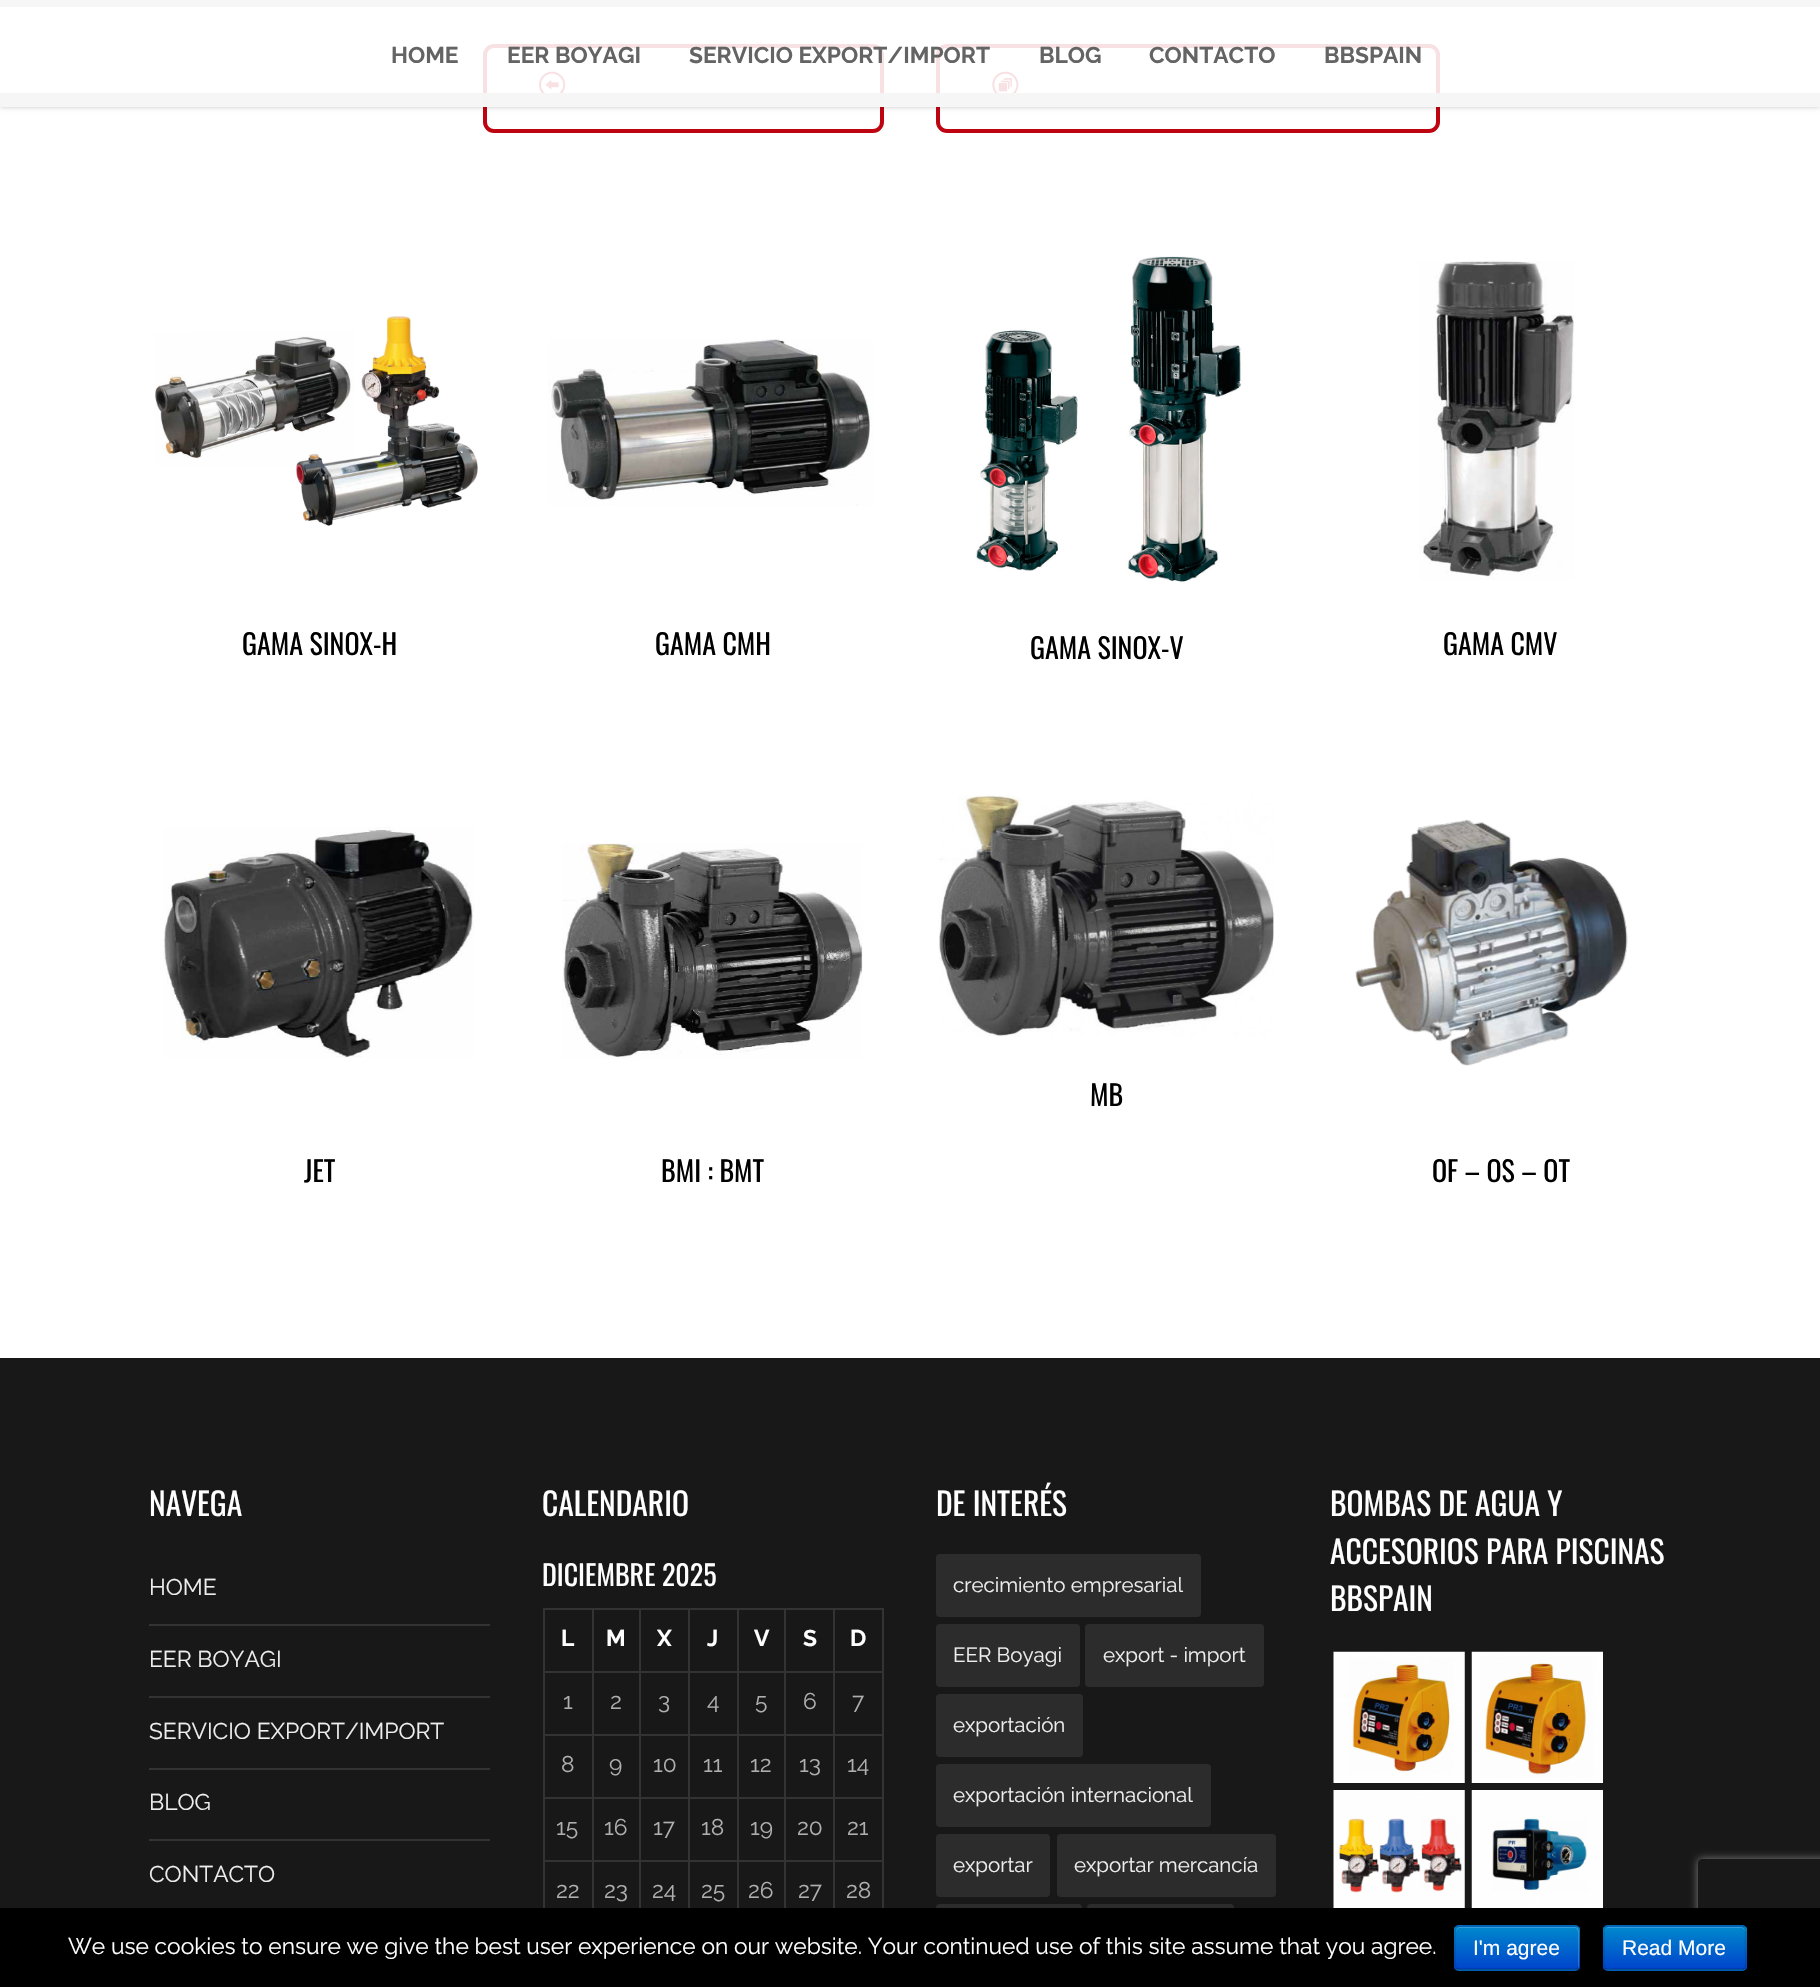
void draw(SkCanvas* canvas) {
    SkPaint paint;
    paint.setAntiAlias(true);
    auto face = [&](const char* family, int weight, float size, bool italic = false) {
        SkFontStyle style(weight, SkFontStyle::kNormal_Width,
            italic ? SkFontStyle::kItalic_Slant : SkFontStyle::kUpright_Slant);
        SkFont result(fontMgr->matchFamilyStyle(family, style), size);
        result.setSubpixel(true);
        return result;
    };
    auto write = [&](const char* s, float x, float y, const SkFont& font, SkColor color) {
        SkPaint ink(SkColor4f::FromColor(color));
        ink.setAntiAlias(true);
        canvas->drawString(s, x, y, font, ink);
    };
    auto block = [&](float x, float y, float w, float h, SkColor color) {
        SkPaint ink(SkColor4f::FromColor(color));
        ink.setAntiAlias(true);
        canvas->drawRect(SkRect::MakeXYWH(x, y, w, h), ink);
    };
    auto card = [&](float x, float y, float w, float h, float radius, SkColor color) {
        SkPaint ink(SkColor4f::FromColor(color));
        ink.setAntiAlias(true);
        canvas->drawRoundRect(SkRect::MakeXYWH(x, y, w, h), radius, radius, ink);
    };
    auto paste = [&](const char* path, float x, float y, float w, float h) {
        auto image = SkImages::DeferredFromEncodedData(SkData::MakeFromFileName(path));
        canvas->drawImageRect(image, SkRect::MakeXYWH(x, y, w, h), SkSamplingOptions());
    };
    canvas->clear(SK_ColorWHITE);
    paint.setStyle(SkPaint::kStroke_Style);
    paint.setStrokeWidth(4);
    paint.setColor(SkColorSetRGB(191, 4, 17));
    canvas->drawRoundRect(SkRect::MakeXYWH(485, 46, 397, 85), 9, 9, paint);
    paste("pic1.png", 539, 71, 27, 27);
    canvas->drawRoundRect(SkRect::MakeXYWH(938, 46, 500, 85), 9, 9, paint);
    paste("pic2.png", 992, 71, 27, 27);
    canvas->save();
    canvas->clipPath(SkPathBuilder(SkPathFillType::kEvenOdd).moveTo(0, 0).lineTo(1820, 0).lineTo(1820, 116).lineTo(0, 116).close().moveTo(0, 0).lineTo(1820, 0).lineTo(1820, 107).lineTo(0, 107).close().detach(), true);
    paint.setStyle(SkPaint::kFill_Style);
    paint.setColor(SkColorSetARGB(54, 0, 0, 0));
    paint.setMaskFilter(SkMaskFilter::MakeBlur(kNormal_SkBlurStyle, 2.5f));
    canvas->drawRect(SkRect::MakeXYWH(0, 0, 1820, 107), paint);
    paint.setMaskFilter(nullptr);
    canvas->restore();
    block(0, 44, 1820, 63, SkColorSetARGB(224, 255, 255, 255));
    block(0, 0, 1820, 7, SkColorSetRGB(246, 246, 246));
    block(0, 93, 1820, 14, SkColorSetARGB(240, 245, 245, 245));
    auto kFont1 = face("Raleway", 700, 22.75f);
    write("HOME", 391, 63, kFont1, SkColorSetRGB(100, 100, 100));
    write("EER BOYAGI", 507, 63, kFont1, SkColorSetRGB(100, 100, 100));
    write("SERVICIO EXPORT/IMPORT", 689, 63, kFont1, SkColorSetRGB(100, 100, 100));
    write("BLOG", 1039, 63, kFont1, SkColorSetRGB(100, 100, 100));
    write("CONTACTO", 1149, 63, kFont1, SkColorSetRGB(100, 100, 100));
    write("BBSPAIN", 1324, 63, kFont1, SkColorSetRGB(100, 100, 100));
    paste("pic3.png", 155, 316, 323, 210);
    auto kFont2 = face("Oswald", 400, 28);
    write("GAMA SINOX-H", 242, 655, kFont2, SK_ColorBLACK);
    paste("pic4.png", 548, 339, 325, 167);
    write("GAMA CMH", 655, 655, kFont2, SK_ColorBLACK);
    paste("pic5.png", 975, 256, 267, 326);
    write("GAMA SINOX-V", 1030, 659, kFont2, SK_ColorBLACK);
    paste("pic6.png", 1419, 261, 155, 319);
    write("GAMA CMV", 1443, 655, kFont2, SK_ColorBLACK);
    paste("pic7.png", 938, 795, 336, 242);
    write("MB", 1090, 1106, kFont2, SK_ColorBLACK);
    paste("pic8.png", 163, 827, 312, 231);
    write("JET", 304, 1182, kFont2, SK_ColorBLACK);
    paste("pic9.png", 562, 843, 301, 216);
    write("BMI : BMT", 661, 1182, kFont2, SK_ColorBLACK);
    paste("pic10.png", 1355, 819, 273, 247);
    write("OF – OS – OT", 1432, 1182, kFont2, SK_ColorBLACK);
    block(0, 1358, 1820, 550, SkColorSetRGB(24, 24, 24));
    auto kFont3 = face("Oswald", 400, 31.5f);
    write("NAVEGA", 149, 1516, kFont3, SK_ColorWHITE);
    block(149, 1624, 341, 2, SkColorSetRGB(51, 51, 51));
    auto kFont4 = face("Raleway", 400, 22.75f);
    write("HOME", 149, 1595, kFont4, SkColorSetRGB(238, 238, 238));
    block(149, 1696, 341, 2, SkColorSetRGB(51, 51, 51));
    write("EER BOYAGI", 149, 1667, kFont4, SkColorSetRGB(238, 238, 238));
    block(149, 1768, 341, 2, SkColorSetRGB(51, 51, 51));
    write("SERVICIO EXPORT/IMPORT", 149, 1739, kFont4, SkColorSetRGB(238, 238, 238));
    block(149, 1839, 341, 2, SkColorSetRGB(51, 51, 51));
    write("BLOG", 149, 1810, kFont4, SkColorSetRGB(238, 238, 238));
    write("CONTACTO", 149, 1882, kFont4, SkColorSetRGB(238, 238, 238));
    write("CALENDARIO", 542, 1516, kFont3, SK_ColorWHITE);
    write("DICIEMBRE 2025", 542, 1586, kFont2, SK_ColorWHITE);
    block(833, 1608, 51, 2, SkColorSetRGB(51, 51, 51));
    block(833, 1671, 51, 2, SkColorSetRGB(51, 51, 51));
    block(833, 1734, 51, 2, SkColorSetRGB(51, 51, 51));
    block(833, 1797, 51, 2, SkColorSetRGB(51, 51, 51));
    block(833, 1860, 51, 2, SkColorSetRGB(51, 51, 51));
    block(833, 1860, 2, 48, SkColorSetRGB(51, 51, 51));
    block(784, 1860, 51, 2, SkColorSetRGB(51, 51, 51));
    block(833, 1797, 2, 65, SkColorSetRGB(51, 51, 51));
    block(784, 1797, 51, 2, SkColorSetRGB(51, 51, 51));
    block(833, 1734, 2, 65, SkColorSetRGB(51, 51, 51));
    block(784, 1734, 51, 2, SkColorSetRGB(51, 51, 51));
    block(833, 1671, 2, 65, SkColorSetRGB(51, 51, 51));
    block(784, 1671, 51, 2, SkColorSetRGB(51, 51, 51));
    block(833, 1608, 2, 65, SkColorSetRGB(51, 51, 51));
    block(784, 1608, 51, 2, SkColorSetRGB(51, 51, 51));
    block(784, 1860, 2, 48, SkColorSetRGB(51, 51, 51));
    block(737, 1860, 49, 2, SkColorSetRGB(51, 51, 51));
    block(784, 1797, 2, 65, SkColorSetRGB(51, 51, 51));
    block(737, 1797, 49, 2, SkColorSetRGB(51, 51, 51));
    block(784, 1734, 2, 65, SkColorSetRGB(51, 51, 51));
    block(737, 1734, 49, 2, SkColorSetRGB(51, 51, 51));
    block(784, 1671, 2, 65, SkColorSetRGB(51, 51, 51));
    block(737, 1671, 49, 2, SkColorSetRGB(51, 51, 51));
    block(784, 1608, 2, 65, SkColorSetRGB(51, 51, 51));
    block(737, 1608, 49, 2, SkColorSetRGB(51, 51, 51));
    block(737, 1860, 2, 48, SkColorSetRGB(51, 51, 51));
    block(688, 1860, 51, 2, SkColorSetRGB(51, 51, 51));
    block(737, 1797, 2, 65, SkColorSetRGB(51, 51, 51));
    block(688, 1797, 51, 2, SkColorSetRGB(51, 51, 51));
    block(737, 1734, 2, 65, SkColorSetRGB(51, 51, 51));
    block(688, 1734, 51, 2, SkColorSetRGB(51, 51, 51));
    block(737, 1671, 2, 65, SkColorSetRGB(51, 51, 51));
    block(688, 1671, 51, 2, SkColorSetRGB(51, 51, 51));
    block(737, 1608, 2, 65, SkColorSetRGB(51, 51, 51));
    block(688, 1608, 51, 2, SkColorSetRGB(51, 51, 51));
    block(688, 1860, 2, 48, SkColorSetRGB(51, 51, 51));
    block(639, 1860, 51, 2, SkColorSetRGB(51, 51, 51));
    block(688, 1797, 2, 65, SkColorSetRGB(51, 51, 51));
    block(639, 1797, 51, 2, SkColorSetRGB(51, 51, 51));
    block(688, 1734, 2, 65, SkColorSetRGB(51, 51, 51));
    block(639, 1734, 51, 2, SkColorSetRGB(51, 51, 51));
    block(688, 1671, 2, 65, SkColorSetRGB(51, 51, 51));
    block(639, 1671, 51, 2, SkColorSetRGB(51, 51, 51));
    block(688, 1608, 2, 65, SkColorSetRGB(51, 51, 51));
    block(639, 1608, 51, 2, SkColorSetRGB(51, 51, 51));
    block(639, 1860, 2, 48, SkColorSetRGB(51, 51, 51));
    block(592, 1860, 49, 2, SkColorSetRGB(51, 51, 51));
    block(639, 1797, 2, 65, SkColorSetRGB(51, 51, 51));
    block(592, 1797, 49, 2, SkColorSetRGB(51, 51, 51));
    block(639, 1734, 2, 65, SkColorSetRGB(51, 51, 51));
    block(592, 1734, 49, 2, SkColorSetRGB(51, 51, 51));
    block(639, 1671, 2, 65, SkColorSetRGB(51, 51, 51));
    block(592, 1671, 49, 2, SkColorSetRGB(51, 51, 51));
    block(639, 1608, 2, 65, SkColorSetRGB(51, 51, 51));
    block(592, 1608, 49, 2, SkColorSetRGB(51, 51, 51));
    block(592, 1860, 2, 48, SkColorSetRGB(51, 51, 51));
    block(543, 1860, 50, 2, SkColorSetRGB(51, 51, 51));
    block(592, 1797, 2, 65, SkColorSetRGB(51, 51, 51));
    block(543, 1797, 50, 2, SkColorSetRGB(51, 51, 51));
    block(592, 1734, 2, 65, SkColorSetRGB(51, 51, 51));
    block(543, 1734, 50, 2, SkColorSetRGB(51, 51, 51));
    block(592, 1671, 2, 65, SkColorSetRGB(51, 51, 51));
    block(543, 1671, 50, 2, SkColorSetRGB(51, 51, 51));
    block(592, 1608, 2, 65, SkColorSetRGB(51, 51, 51));
    block(543, 1608, 50, 2, SkColorSetRGB(51, 51, 51));
    block(543, 1860, 2, 48, SkColorSetRGB(51, 51, 51));
    block(543, 1797, 2, 65, SkColorSetRGB(51, 51, 51));
    block(543, 1734, 2, 65, SkColorSetRGB(51, 51, 51));
    block(543, 1671, 2, 65, SkColorSetRGB(51, 51, 51));
    block(543, 1608, 2, 65, SkColorSetRGB(51, 51, 51));
    write("L", 561, 1646, kFont1, SK_ColorWHITE);
    write("M", 606, 1646, kFont1, SK_ColorWHITE);
    write("X", 657, 1646, kFont1, SK_ColorWHITE);
    write("J", 707, 1646, kFont1, SK_ColorWHITE);
    write("V", 754, 1646, kFont1, SK_ColorWHITE);
    write("S", 803, 1646, kFont1, SK_ColorWHITE);
    block(882, 1860, 2, 48, SkColorSetRGB(51, 51, 51));
    block(882, 1797, 2, 65, SkColorSetRGB(51, 51, 51));
    block(882, 1734, 2, 65, SkColorSetRGB(51, 51, 51));
    block(882, 1671, 2, 65, SkColorSetRGB(51, 51, 51));
    block(882, 1608, 2, 65, SkColorSetRGB(51, 51, 51));
    write("D", 850, 1646, kFont1, SK_ColorWHITE);
    write("1", 563, 1709, kFont4, SkColorSetRGB(175, 175, 175));
    write("2", 610, 1709, kFont4, SkColorSetRGB(175, 175, 175));
    write("3", 658, 1709, kFont4, SkColorSetRGB(175, 175, 175));
    write("4", 707, 1709, kFont4, SkColorSetRGB(175, 175, 175));
    write("5", 755, 1709, kFont4, SkColorSetRGB(175, 175, 175));
    write("6", 803, 1709, kFont4, SkColorSetRGB(175, 175, 175));
    write("7", 852, 1709, kFont4, SkColorSetRGB(175, 175, 175));
    write("8", 561, 1772, kFont4, SkColorSetRGB(175, 175, 175));
    write("9", 609, 1772, kFont4, SkColorSetRGB(175, 175, 175));
    write("10", 653, 1772, kFont4, SkColorSetRGB(175, 175, 175));
    write("11", 703, 1772, kFont4, SkColorSetRGB(175, 175, 175));
    write("12", 750, 1772, kFont4, SkColorSetRGB(175, 175, 175));
    write("13", 799, 1772, kFont4, SkColorSetRGB(175, 175, 175));
    write("14", 847, 1772, kFont4, SkColorSetRGB(175, 175, 175));
    write("15", 556, 1835, kFont4, SkColorSetRGB(175, 175, 175));
    write("16", 604, 1835, kFont4, SkColorSetRGB(175, 175, 175));
    write("17", 653, 1835, kFont4, SkColorSetRGB(175, 175, 175));
    write("18", 701, 1835, kFont4, SkColorSetRGB(175, 175, 175));
    write("19", 750, 1835, kFont4, SkColorSetRGB(175, 175, 175));
    write("20", 797, 1835, kFont4, SkColorSetRGB(175, 175, 175));
    write("21", 847, 1835, kFont4, SkColorSetRGB(175, 175, 175));
    write("22", 556, 1898, kFont4, SkColorSetRGB(175, 175, 175));
    write("23", 604, 1898, kFont4, SkColorSetRGB(175, 175, 175));
    write("24", 652, 1898, kFont4, SkColorSetRGB(175, 175, 175));
    write("25", 701, 1898, kFont4, SkColorSetRGB(175, 175, 175));
    write("26", 748, 1898, kFont4, SkColorSetRGB(175, 175, 175));
    write("27", 798, 1898, kFont4, SkColorSetRGB(175, 175, 175));
    write("28", 846, 1898, kFont4, SkColorSetRGB(175, 175, 175));
    write("DE INTERÉS", 936, 1516, kFont3, SK_ColorWHITE);
    card(936, 1554, 265, 63, 4, SkColorSetRGB(44, 44, 44));
    auto kFont5 = face("Raleway", 400, 20.5f);
    write("crecimiento empresarial", 953, 1592, kFont5, SkColorSetRGB(238, 238, 238));
    card(936, 1624, 144, 63, 4, SkColorSetRGB(44, 44, 44));
    write("EER Boyagi", 953, 1662, kFont5, SkColorSetRGB(238, 238, 238));
    card(1085, 1624, 179, 63, 4, SkColorSetRGB(44, 44, 44));
    write("export - import", 1103, 1662, kFont5, SkColorSetRGB(238, 238, 238));
    card(936, 1694, 147, 63, 4, SkColorSetRGB(44, 44, 44));
    write("exportación", 953, 1732, kFont5, SkColorSetRGB(238, 238, 238));
    card(936, 1764, 275, 63, 4, SkColorSetRGB(44, 44, 44));
    write("exportación internacional", 953, 1802, kFont5, SkColorSetRGB(238, 238, 238));
    card(936, 1834, 114, 63, 4, SkColorSetRGB(44, 44, 44));
    write("exportar", 953, 1872, kFont5, SkColorSetRGB(238, 238, 238));
    card(1057, 1834, 219, 63, 4, SkColorSetRGB(44, 44, 44));
    write("exportar mercancía", 1074, 1872, kFont5, SkColorSetRGB(238, 238, 238));
    card(936, 1904, 146, 63, 4, SkColorSetRGB(44, 44, 44));
    card(1087, 1904, 147, 63, 4, SkColorSetRGB(44, 44, 44));
    write("BOMBAS DE AGUA Y", 1330, 1516, kFont3, SK_ColorWHITE);
    write("ACCESORIOS PARA PISCINAS", 1330, 1564, kFont3, SK_ColorWHITE);
    write("BBSPAIN", 1330, 1611, kFont3, SK_ColorWHITE);
    paste("pic11.png", 1333, 1651, 132, 132);
    paste("pic12.png", 1471, 1651, 132, 132);
    paste("pic13.png", 1333, 1790, 132, 118);
    paste("pic14.png", 1471, 1790, 132, 118);
    canvas->save();
    canvas->clipPath(SkPathBuilder(SkPathFillType::kEvenOdd).moveTo(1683, 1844).lineTo(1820, 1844).lineTo(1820, 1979).lineTo(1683, 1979).close().moveTo(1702, 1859).lineTo(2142, 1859).cubicTo(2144, 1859, 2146, 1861, 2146, 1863).lineTo(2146, 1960).cubicTo(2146, 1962, 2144, 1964, 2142, 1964).lineTo(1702, 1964).cubicTo(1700, 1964, 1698, 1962, 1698, 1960).lineTo(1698, 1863).cubicTo(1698, 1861, 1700, 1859, 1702, 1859).close().detach(), true);
    paint.setColor(SkColorSetRGB(128, 128, 128));
    paint.setMaskFilter(SkMaskFilter::MakeBlur(kNormal_SkBlurStyle, 4.5f));
    canvas->drawRoundRect(SkRect::MakeXYWH(1698, 1859, 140, 105), 4, 4, paint);
    paint.setMaskFilter(nullptr);
    canvas->restore();
    block(0, 1908, 1820, 79, SK_ColorBLACK);
    write("We use cookies to ensure we give the best user experience on our website. Your continued use of this site assume that you agree.", 68, 1954, kFont4, SK_ColorWHITE);
    card(1454, 1925, 126, 46, 5, SkColorSetRGB(0, 109, 204));
    canvas->save();
    canvas->clipPath(SkPathBuilder().moveTo(1459, 1925).lineTo(1575, 1925).cubicTo(1578, 1925, 1580, 1927, 1580, 1930).lineTo(1580, 1966).cubicTo(1580, 1969, 1578, 1971, 1575, 1971).lineTo(1459, 1971).cubicTo(1456, 1971, 1454, 1969, 1454, 1966).lineTo(1454, 1930).cubicTo(1454, 1927, 1456, 1925, 1459, 1925).close().detach(), true);
    {
        const SkColor colors[] = {SkColorSetRGB(0, 136, 204), SkColorSetRGB(0, 68, 204)};
        const float stops[] = {0, 1};
        const SkPoint ends[] = {{1517, 1927}, {1517, 1969}};
        paint.setShader(SkGradientShader::MakeLinear(ends, colors, stops, 2, SkTileMode::kClamp));
        paint.setAlpha(255);
    }
    canvas->drawRect(SkRect::MakeXYWH(1454, 1927, 126, 42), paint);
    canvas->restore();
    paint.setShader(nullptr);
    paint.setColor(SkColorSetARGB(51, 255, 255, 255));
    canvas->drawPath(SkPathBuilder().moveTo(1460, 1928).lineTo(1575, 1928).cubicTo(1579, 1928, 1578, 1936, 1578, 1938).lineTo(1578, 1968).cubicTo(1579, 1967, 1579, 1966, 1579, 1965).lineTo(1579, 1931).cubicTo(1579, 1929, 1577, 1927, 1575, 1927).lineTo(1460, 1927).cubicTo(1458, 1927, 1456, 1929, 1456, 1931).lineTo(1456, 1932).cubicTo(1456, 1930, 1458, 1928, 1460, 1928).close().detach(), paint);
    paint.setStyle(SkPaint::kStroke_Style);
    paint.setStrokeWidth(1.8f);
    paint.setColor(SkColorSetARGB(64, 0, 0, 0));
    canvas->drawPath(SkPathBuilder().moveTo(1578, 1968.5f).lineTo(1575.5f, 1969.5f).lineTo(1479, 1969.5f).lineTo(1459.5f, 1969.5f).lineTo(1456.5f, 1968.5f).detach(), paint);
    paint.setColor(SkColorSetARGB(26, 0, 0, 0));
    canvas->drawPath(SkPathBuilder().moveTo(1456.5f, 1968.5f).cubicTo(1454, 1966, 1455, 1962, 1455, 1959.5f).lineTo(1455, 1948).cubicTo(1455, 1921.5f, 1451, 1926, 1479, 1926).lineTo(1575, 1926).cubicTo(1580.5f, 1926, 1579.5f, 1932.5f, 1579.5f, 1936).lineTo(1579.5f, 1953.5f).cubicTo(1579.5f, 1956.5f, 1581, 1965.5f, 1578, 1968.5f).detach(), paint);
    auto kFont6 = face("Liberation Sans", 400, 21);
    write("I'm agree", 1473, 1955, kFont6, SK_ColorWHITE);
    card(1603, 1925, 144, 46, 5, SkColorSetRGB(0, 109, 204));
    canvas->save();
    canvas->clipPath(SkPathBuilder().moveTo(1608, 1925).lineTo(1742, 1925).cubicTo(1745, 1925, 1747, 1927, 1747, 1930).lineTo(1747, 1966).cubicTo(1747, 1969, 1745, 1971, 1742, 1971).lineTo(1608, 1971).cubicTo(1605, 1971, 1603, 1969, 1603, 1966).lineTo(1603, 1930).cubicTo(1603, 1927, 1605, 1925, 1608, 1925).close().detach(), true);
    paint.setStyle(SkPaint::kFill_Style);
    {
        const SkColor colors[] = {SkColorSetRGB(0, 136, 204), SkColorSetRGB(0, 68, 204)};
        const float stops[] = {0, 1};
        const SkPoint ends[] = {{1675, 1927}, {1675, 1969}};
        paint.setShader(SkGradientShader::MakeLinear(ends, colors, stops, 2, SkTileMode::kClamp));
        paint.setAlpha(255);
    }
    canvas->drawRect(SkRect::MakeXYWH(1603, 1927, 144, 42), paint);
    canvas->restore();
    paint.setShader(nullptr);
    paint.setColor(SkColorSetARGB(51, 255, 255, 255));
    canvas->drawPath(SkPathBuilder().moveTo(1608, 1928).lineTo(1741, 1928).cubicTo(1743, 1928, 1745, 1930, 1745, 1932).lineTo(1745, 1931).cubicTo(1745, 1929, 1743, 1927, 1741, 1927).lineTo(1609, 1927).cubicTo(1607, 1927, 1605, 1929, 1605, 1931).lineTo(1605, 1932).cubicTo(1605, 1930, 1606, 1928, 1608, 1928).close().detach(), paint);
    paint.setStyle(SkPaint::kStroke_Style);
    paint.setColor(SkColorSetARGB(64, 0, 0, 0));
    canvas->drawPath(SkPathBuilder().moveTo(1744.5f, 1968.5f).lineTo(1741, 1969.5f).lineTo(1608, 1969.5f).lineTo(1605, 1968.5f).detach(), paint);
    paint.setColor(SkColorSetARGB(26, 0, 0, 0));
    canvas->drawPath(SkPathBuilder().moveTo(1605, 1968.5f).cubicTo(1603, 1966, 1604, 1962, 1604, 1959.5f).lineTo(1604, 1948).cubicTo(1604, 1920.5f, 1600, 1926, 1630.5f, 1926).lineTo(1741, 1926).cubicTo(1746.5f, 1926, 1745.5f, 1932.5f, 1745.5f, 1936).lineTo(1745.5f, 1953.5f).cubicTo(1745.5f, 1956.5f, 1747, 1965.5f, 1744.5f, 1968.5f).detach(), paint);
    write("Read More", 1622, 1955, kFont6, SK_ColorWHITE);
}
